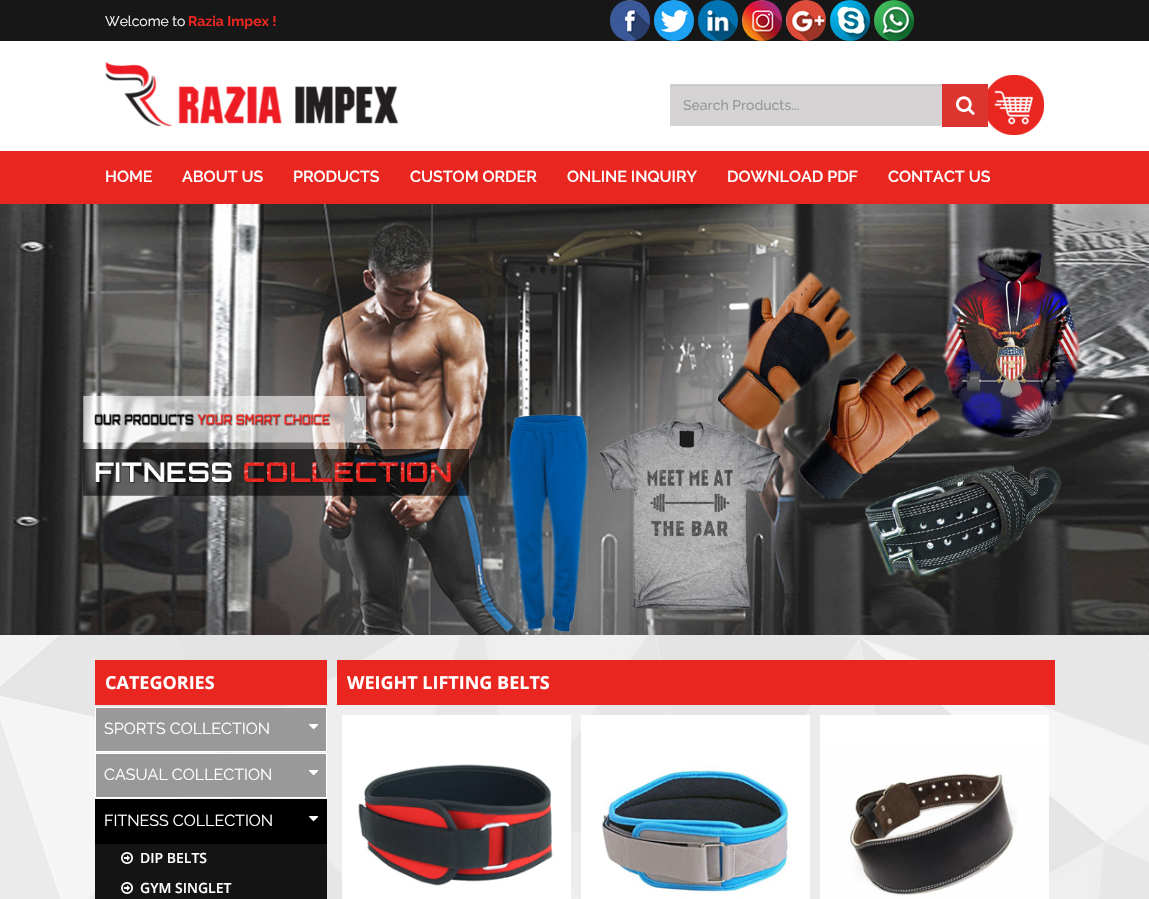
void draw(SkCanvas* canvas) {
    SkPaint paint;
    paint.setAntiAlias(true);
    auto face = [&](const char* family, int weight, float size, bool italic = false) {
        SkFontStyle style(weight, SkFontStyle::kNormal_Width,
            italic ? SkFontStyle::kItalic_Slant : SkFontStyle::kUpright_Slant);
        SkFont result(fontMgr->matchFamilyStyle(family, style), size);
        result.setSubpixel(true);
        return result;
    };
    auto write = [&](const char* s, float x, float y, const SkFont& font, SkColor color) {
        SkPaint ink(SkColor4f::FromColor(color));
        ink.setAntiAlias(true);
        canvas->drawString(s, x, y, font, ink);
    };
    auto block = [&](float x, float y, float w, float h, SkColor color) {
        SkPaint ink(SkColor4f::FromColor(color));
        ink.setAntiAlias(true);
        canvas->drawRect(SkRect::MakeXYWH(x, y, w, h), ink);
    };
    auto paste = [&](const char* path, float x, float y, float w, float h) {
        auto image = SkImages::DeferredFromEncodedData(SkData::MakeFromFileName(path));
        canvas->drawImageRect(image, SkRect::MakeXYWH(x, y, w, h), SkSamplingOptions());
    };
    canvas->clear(SK_ColorWHITE);
    block(0, 0, 1149, 41, SkColorSetRGB(23, 23, 23));
    auto kFont1 = face("Raleway", 400, 14);
    write("Welcome to", 105, 26, kFont1, SK_ColorWHITE);
    auto kFont2 = face("Raleway", 700, 14);
    write("Razia Impex !", 188, 26, kFont2, SkColorSetRGB(233, 38, 32));
    paste("pic1.png", 610, 0, 40, 41);
    paste("pic2.png", 654, 0, 40, 41);
    paste("pic3.png", 698, 0, 40, 41);
    paste("pic4.png", 742, 0, 40, 41);
    paste("pic5.png", 786, 0, 40, 41);
    paste("pic6.png", 830, 0, 40, 41);
    paste("pic7.png", 874, 0, 40, 41);
    paste("pic8.png", 105, 62, 293, 65);
    block(670, 84, 272, 42, SkColorSetRGB(213, 211, 211));
    block(671, 85, 271, 1, SkColorSetRGB(197, 195, 195));
    auto kFont3 = face("Raleway", 500, 14);
    write("Search Products...", 683, 110, kFont3, SkColorSetRGB(153, 153, 153));
    block(942, 84, 46, 43, SkColorSetRGB(220, 52, 47));
    paste("pic9.png", 956, 96, 19, 19);
    paste("pic10.png", 988, 75, 56, 60);
    block(0, 151, 1149, 53, SkColorSetRGB(233, 38, 32));
    auto kFont4 = face("Raleway", 600, 16);
    write("HOME", 105, 182, kFont4, SK_ColorWHITE);
    write("ABOUT US", 182, 182, kFont4, SK_ColorWHITE);
    write("PRODUCTS", 293, 182, kFont4, SK_ColorWHITE);
    write("CUSTOM ORDER", 410, 182, kFont4, SK_ColorWHITE);
    write("ONLINE INQUIRY", 567, 182, kFont4, SK_ColorWHITE);
    write("DOWNLOAD PDF", 727, 182, kFont4, SK_ColorWHITE);
    write("CONTACT US", 888, 182, kFont4, SK_ColorWHITE);
    paste("pic11.png", 0, 204, 1149, 431);
    paste("pic12.png", 0, 635, 1149, 264);
    block(95, 660, 232, 45, SkColorSetRGB(233, 38, 32));
    auto kFont5 = face("Open Sans", 700, 18);
    write("CATEGORIES", 105, 689, kFont5, SK_ColorWHITE);
    paint.setColor(SkColorSetRGB(153, 153, 153));
    canvas->drawRect(SkRect::MakeXYWH(95.5f, 707.5f, 231, 44), paint);
    paint.setStyle(SkPaint::kStroke_Style);
    paint.setStrokeWidth(1);
    paint.setColor(SK_ColorWHITE);
    canvas->drawRect(SkRect::MakeXYWH(95.5f, 707.5f, 231, 44), paint);
    auto kFont6 = face("Raleway", 400, 16);
    write("SPORTS COLLECTION", 104, 734, kFont6, SK_ColorWHITE);
    paste("pic13.png", 309, 724, 10, 6);
    paint.setStyle(SkPaint::kFill_Style);
    paint.setColor(SkColorSetRGB(153, 153, 153));
    canvas->drawRect(SkRect::MakeXYWH(95.5f, 753.5f, 231, 44), paint);
    paint.setStyle(SkPaint::kStroke_Style);
    paint.setColor(SK_ColorWHITE);
    canvas->drawRect(SkRect::MakeXYWH(95.5f, 753.5f, 231, 44), paint);
    write("CASUAL COLLECTION", 104, 780, kFont6, SK_ColorWHITE);
    paste("pic13.png", 309, 770, 10, 6);
    paint.setStyle(SkPaint::kFill_Style);
    paint.setColor(SK_ColorBLACK);
    canvas->drawRect(SkRect::MakeXYWH(95.5f, 799.5f, 231, 44), paint);
    paint.setStyle(SkPaint::kStroke_Style);
    canvas->drawRect(SkRect::MakeXYWH(95.5f, 799.5f, 231, 44), paint);
    write("FITNESS COLLECTION", 104, 826, kFont6, SK_ColorWHITE);
    paste("pic14.png", 309, 816, 10, 6);
    block(95, 844, 232, 55, SkColorSetRGB(20, 20, 20));
    paste("pic15.png", 121, 852, 12, 12);
    auto kFont7 = face("Open Sans", 600, 14);
    write("DIP BELTS", 140, 863, kFont7, SK_ColorWHITE);
    paste("pic15.png", 121, 882, 12, 12);
    write("GYM SINGLET", 140, 893, kFont7, SK_ColorWHITE);
    block(337, 660, 718, 45, SkColorSetRGB(233, 38, 32));
    write("WEIGHT LIFTING BELTS", 347, 689, kFont5, SK_ColorWHITE);
    paste("pic16.png", 342, 715, 229, 184);
    paste("pic17.png", 581, 715, 229, 184);
    paste("pic18.png", 820, 715, 229, 184);
}
